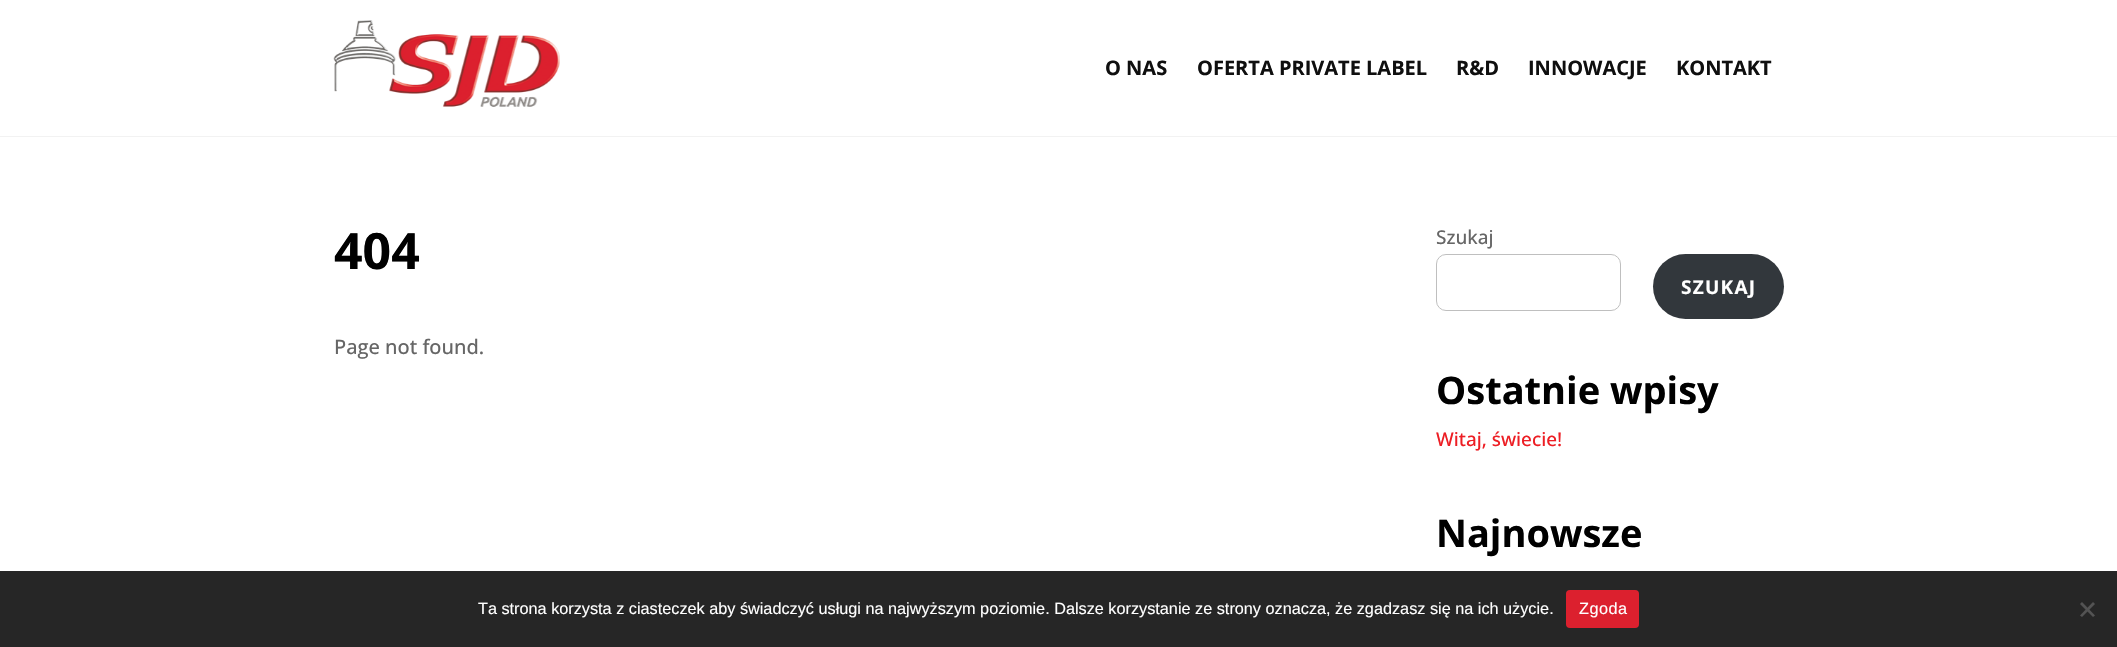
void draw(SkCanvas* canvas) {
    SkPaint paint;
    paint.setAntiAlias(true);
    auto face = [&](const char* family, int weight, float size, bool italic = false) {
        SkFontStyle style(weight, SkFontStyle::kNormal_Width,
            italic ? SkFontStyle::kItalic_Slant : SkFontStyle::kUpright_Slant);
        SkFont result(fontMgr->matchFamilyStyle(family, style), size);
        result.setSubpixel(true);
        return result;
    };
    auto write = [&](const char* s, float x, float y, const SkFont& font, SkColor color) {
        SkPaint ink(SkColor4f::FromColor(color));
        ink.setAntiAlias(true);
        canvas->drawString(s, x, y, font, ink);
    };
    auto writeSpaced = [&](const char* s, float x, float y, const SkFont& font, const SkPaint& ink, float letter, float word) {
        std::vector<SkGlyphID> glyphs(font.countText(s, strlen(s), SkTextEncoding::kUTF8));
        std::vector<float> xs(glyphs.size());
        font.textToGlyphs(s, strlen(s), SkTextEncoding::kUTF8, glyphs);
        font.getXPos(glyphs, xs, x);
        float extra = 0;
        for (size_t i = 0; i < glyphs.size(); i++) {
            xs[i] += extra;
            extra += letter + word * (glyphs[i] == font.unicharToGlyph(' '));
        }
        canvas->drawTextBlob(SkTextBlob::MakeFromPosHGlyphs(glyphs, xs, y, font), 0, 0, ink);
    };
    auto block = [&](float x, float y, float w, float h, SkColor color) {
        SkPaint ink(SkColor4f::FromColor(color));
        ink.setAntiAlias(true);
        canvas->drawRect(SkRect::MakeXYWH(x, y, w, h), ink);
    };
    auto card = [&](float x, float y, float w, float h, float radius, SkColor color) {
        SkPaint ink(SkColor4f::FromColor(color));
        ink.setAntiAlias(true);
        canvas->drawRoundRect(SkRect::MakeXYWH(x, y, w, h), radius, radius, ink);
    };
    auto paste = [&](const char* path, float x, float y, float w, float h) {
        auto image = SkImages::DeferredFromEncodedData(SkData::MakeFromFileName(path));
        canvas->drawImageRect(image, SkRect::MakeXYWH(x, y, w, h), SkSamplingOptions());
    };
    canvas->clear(SK_ColorWHITE);
    block(0, 136, 2117, 1, SkColorSetRGB(242, 242, 242));
    paste("pic1.png", 333, 20, 227, 87);
    auto kFont1 = face("Open Sans", 700, 20);
    write("O NAS", 1105, 75, kFont1, SkColorSetRGB(15, 15, 15));
    write("OFERTA PRIVATE LABEL", 1197, 75, kFont1, SkColorSetRGB(15, 15, 15));
    write("R&D", 1456, 75, kFont1, SkColorSetRGB(15, 15, 15));
    write("INNOWACJE", 1528, 75, kFont1, SkColorSetRGB(15, 15, 15));
    write("KONTAKT", 1676, 75, kFont1, SkColorSetRGB(15, 15, 15));
    auto kFont2 = face("Open Sans", 700, 50);
    write("404", 334, 269, kFont2, SK_ColorBLACK);
    auto kFont3 = face("Open Sans", 500, 20);
    write("Page not found.", 334, 354, kFont3, SkColorSetRGB(102, 102, 102));
    auto kFont4 = face("Open Sans", 500, 19);
    write("Szukaj", 1436, 244, kFont4, SkColorSetRGB(102, 102, 102));
    paint.setStyle(SkPaint::kStroke_Style);
    paint.setStrokeWidth(1);
    paint.setColor(SkColorSetRGB(191, 191, 191));
    canvas->drawRoundRect(SkRect::MakeXYWH(1436.5f, 254.5f, 184, 56), 9.5f, 9.5f, paint);
    card(1653, 254, 131, 65, 32.5f, SkColorSetRGB(50, 55, 60));
    auto kFont5 = face("Open Sans", 700, 19);
    paint.setStyle(SkPaint::kFill_Style);
    paint.setColor(SK_ColorWHITE);
    writeSpaced("SZUKAJ", 1681, 294, kFont5, paint, 1.25f, 0);
    auto kFont6 = face("Open Sans", 700, 38);
    write("Ostatnie wpisy", 1436, 404, kFont6, SK_ColorBLACK);
    write("Witaj, świecie!", 1436, 446, kFont4, SkColorSetRGB(237, 30, 36));
    write("Najnowsze", 1436, 547, kFont6, SK_ColorBLACK);
    block(0, 571, 2117, 76, SkColorSetARGB(217, 0, 0, 0));
    auto kFont7 = face("Liberation Sans", 400, 16.25f);
    write("Ta strona korzysta z ciasteczek aby świadczyć usługi na najwyższym poziomie. Dalsze korzystanie ze strony oznacza, że zgadzasz się na ich użycie.", 478, 614, kFont7, SK_ColorWHITE);
    card(1566, 590, 73, 38, 4, SkColorSetRGB(220, 32, 46));
    writeSpaced("Zgoda", 1579, 614, kFont7, paint, 0.5f, 0);
    paint.setColor(SkColorSetRGB(83, 83, 83));
    canvas->drawPath(SkPathBuilder().moveTo(2093, 602).lineTo(2095, 604).lineTo(2082, 617).lineTo(2080, 615.5f).close().detach(), paint);
    canvas->drawPath(SkPathBuilder().moveTo(2080, 604).lineTo(2082, 602).lineTo(2095, 615.5f).lineTo(2093, 617).close().detach(), paint);
}
